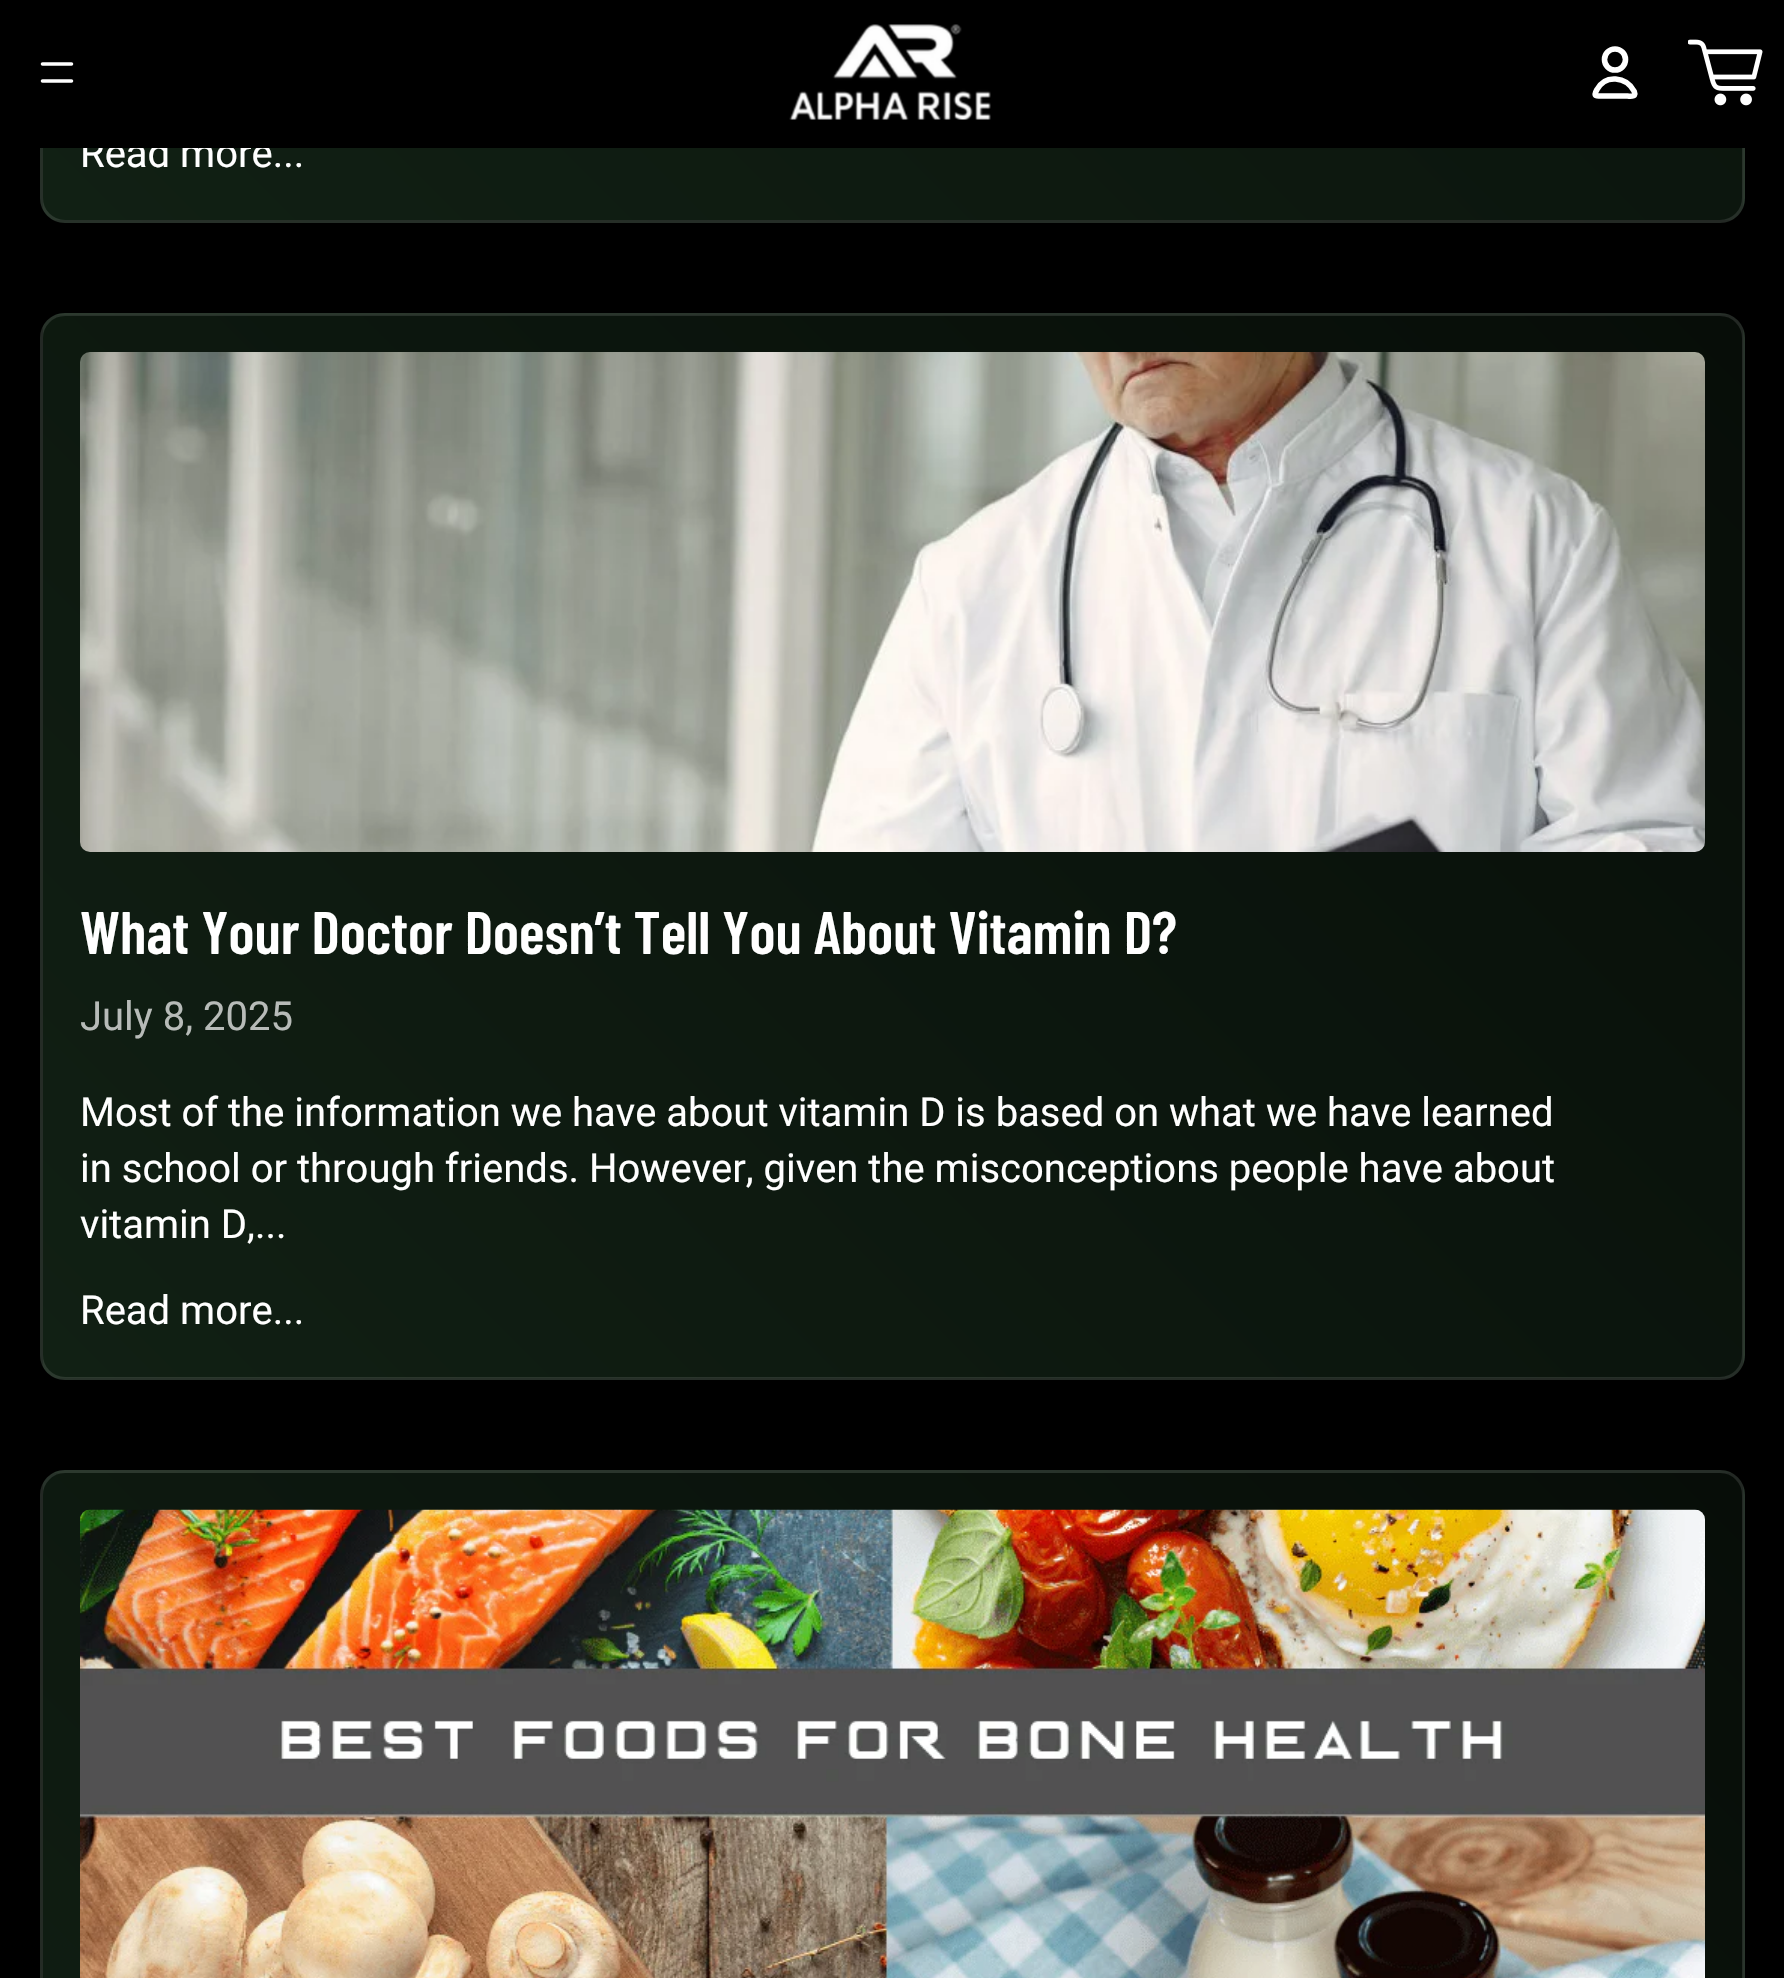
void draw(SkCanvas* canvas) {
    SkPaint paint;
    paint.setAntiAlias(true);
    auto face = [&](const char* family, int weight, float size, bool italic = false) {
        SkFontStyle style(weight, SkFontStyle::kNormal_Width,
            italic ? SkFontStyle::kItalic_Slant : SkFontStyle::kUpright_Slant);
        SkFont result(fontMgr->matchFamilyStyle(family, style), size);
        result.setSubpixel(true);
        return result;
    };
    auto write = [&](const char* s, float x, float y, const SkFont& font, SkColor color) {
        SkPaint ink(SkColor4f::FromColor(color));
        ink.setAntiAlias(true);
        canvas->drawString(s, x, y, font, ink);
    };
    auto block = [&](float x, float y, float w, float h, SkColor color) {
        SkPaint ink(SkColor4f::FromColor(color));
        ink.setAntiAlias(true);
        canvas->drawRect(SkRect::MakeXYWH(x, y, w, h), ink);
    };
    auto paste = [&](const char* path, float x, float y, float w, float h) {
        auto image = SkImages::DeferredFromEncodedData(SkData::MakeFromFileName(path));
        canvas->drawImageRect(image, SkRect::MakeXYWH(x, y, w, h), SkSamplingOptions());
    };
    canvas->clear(SK_ColorBLACK);
    canvas->save();
    canvas->clipPath(SkPathBuilder().moveTo(65, -1287).lineTo(1720, -1287).cubicTo(1734, -1287, 1745, -1276, 1745, -1262).lineTo(1745, 198).cubicTo(1745, 212, 1734, 223, 1720, 223).lineTo(65, 223).cubicTo(51, 223, 40, 212, 40, 198).lineTo(40, -1262).cubicTo(40, -1276, 51, -1287, 65, -1287).close().detach(), true);
    {
        const SkColor colors[] = {SkColorSetRGB(17, 32, 20), SkColorSetRGB(7, 13, 8)};
        const float stops[] = {0, 1};
        const SkPoint ends[] = {{-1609, 269}, {-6.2f, -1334}};
        paint.setShader(SkGradientShader::MakeLinear(ends, colors, stops, 2, SkTileMode::kClamp));
        paint.setAlpha(255);
    }
    canvas->drawRect(SkRect::MakeXYWH(40, 148, 3, 62), paint);
    {
        const SkColor colors[] = {SkColorSetRGB(17, 32, 20), SkColorSetRGB(7, 13, 8)};
        const float stops[] = {0, 1};
        const SkPoint ends[] = {{91, 269}, {1694, -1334}};
        paint.setShader(SkGradientShader::MakeLinear(ends, colors, stops, 2, SkTileMode::kClamp));
        paint.setAlpha(255);
    }
    canvas->drawRect(SkRect::MakeXYWH(43, 148, 1700, 72), paint);
    {
        const SkColor colors[] = {SkColorSetRGB(17, 32, 20), SkColorSetRGB(7, 13, 8)};
        const float stops[] = {0, 1};
        const SkPoint ends[] = {{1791, 269}, {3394, -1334}};
        paint.setShader(SkGradientShader::MakeLinear(ends, colors, stops, 2, SkTileMode::kClamp));
        paint.setAlpha(255);
    }
    canvas->drawRect(SkRect::MakeXYWH(1743, 148, 2, 60), paint);
    {
        const SkColor colors[] = {SkColorSetRGB(17, 32, 20), SkColorSetRGB(7, 13, 8)};
        const float stops[] = {0, 1};
        const SkPoint ends[] = {{91, 1774}, {1694, 171}};
        paint.setShader(SkGradientShader::MakeLinear(ends, colors, stops, 2, SkTileMode::kClamp));
        paint.setAlpha(255);
    }
    canvas->drawRect(SkRect::MakeXYWH(53, 220, 1679, 3), paint);
    canvas->restore();
    paint.setStyle(SkPaint::kStroke_Style);
    paint.setStrokeWidth(3);
    paint.setShader(nullptr);
    paint.setColor(SkColorSetARGB(28, 255, 255, 255));
    canvas->drawRoundRect(SkRect::MakeXYWH(41.5f, -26.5f, 1702, 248), 23.5f, 23.5f, paint);
    auto kFont1 = face("Roboto", 400, 40);
    write("Read more...", 80, 167, kFont1, SK_ColorWHITE);
    block(40, 0, 1705, 148, SK_ColorBLACK);
    paint.setStrokeWidth(3.6f);
    paint.setStrokeCap(SkPaint::kRound_Cap);
    paint.setColor(SK_ColorWHITE);
    canvas->drawPath(SkPathBuilder().moveTo(42.5f, 64).lineTo(71.5f, 64).moveTo(42.5f, 81).lineTo(71.5f, 81).detach(), paint);
    paste("pic1.png", 789, 24, 202, 96);
    paint.setStrokeWidth(5.6f);
    paint.setStrokeCap(SkPaint::kButt_Cap);
    canvas->drawCircle(1615, 59.5f, 10.5f, paint);
    paint.setStrokeCap(SkPaint::kRound_Cap);
    paint.setStrokeJoin(SkPaint::kRound_Join);
    canvas->drawPath(SkPathBuilder().moveTo(1597, 89.5f).cubicTo(1593, 96.5f, 1595.5f, 96, 1603, 96).lineTo(1627, 96).cubicTo(1627.5f, 96, 1633.5f, 97, 1634.5f, 95).cubicTo(1635.5f, 93.5f, 1634.5f, 92.5f, 1634, 91).cubicTo(1626, 76.5f, 1605.5f, 74, 1597, 89.5f).detach(), paint);
    paste("pic2.png", 1688, 39, 75, 67);
    canvas->save();
    canvas->clipPath(SkPathBuilder().moveTo(65, 313).lineTo(1720, 313).cubicTo(1734, 313, 1745, 324, 1745, 338).lineTo(1745, 1355).cubicTo(1745, 1369, 1734, 1380, 1720, 1380).lineTo(65, 1380).cubicTo(51, 1380, 40, 1369, 40, 1355).lineTo(40, 338).cubicTo(40, 324, 51, 313, 65, 313).close().detach(), true);
    paint.setStyle(SkPaint::kFill_Style);
    {
        const SkColor colors[] = {SkColorSetRGB(17, 32, 20), SkColorSetRGB(7, 13, 8)};
        const float stops[] = {0, 1};
        const SkPoint ends[] = {{202, 474}, {1583, -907}};
        paint.setShader(SkGradientShader::MakeLinear(ends, colors, stops, 2, SkTileMode::kClamp));
        paint.setAlpha(255);
    }
    canvas->drawRect(SkRect::MakeXYWH(55, 313, 1675, 2), paint);
    {
        const SkColor colors[] = {SkColorSetRGB(17, 32, 20), SkColorSetRGB(7, 13, 8)};
        const float stops[] = {0, 1};
        const SkPoint ends[] = {{-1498, 1537}, {-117, 156}};
        paint.setShader(SkGradientShader::MakeLinear(ends, colors, stops, 2, SkTileMode::kClamp));
        paint.setAlpha(255);
    }
    canvas->drawRect(SkRect::MakeXYWH(40, 326, 3, 1041), paint);
    {
        const SkColor colors[] = {SkColorSetRGB(17, 32, 20), SkColorSetRGB(7, 13, 8)};
        const float stops[] = {0, 1};
        const SkPoint ends[] = {{202, 1537}, {1583, 156}};
        paint.setShader(SkGradientShader::MakeLinear(ends, colors, stops, 2, SkTileMode::kClamp));
        paint.setAlpha(255);
    }
    canvas->drawRect(SkRect::MakeXYWH(43, 315, 1700, 1063), paint);
    {
        const SkColor colors[] = {SkColorSetRGB(17, 32, 20), SkColorSetRGB(7, 13, 8)};
        const float stops[] = {0, 1};
        const SkPoint ends[] = {{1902, 1537}, {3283, 156}};
        paint.setShader(SkGradientShader::MakeLinear(ends, colors, stops, 2, SkTileMode::kClamp));
        paint.setAlpha(255);
    }
    canvas->drawRect(SkRect::MakeXYWH(1743, 328, 2, 1037), paint);
    {
        const SkColor colors[] = {SkColorSetRGB(17, 32, 20), SkColorSetRGB(7, 13, 8)};
        const float stops[] = {0, 1};
        const SkPoint ends[] = {{202, 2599}, {1583, 1218}};
        paint.setShader(SkGradientShader::MakeLinear(ends, colors, stops, 2, SkTileMode::kClamp));
        paint.setAlpha(255);
    }
    canvas->drawRect(SkRect::MakeXYWH(55, 1378, 1675, 2), paint);
    canvas->restore();
    paint.setStyle(SkPaint::kStroke_Style);
    paint.setStrokeWidth(3);
    paint.setStrokeCap(SkPaint::kButt_Cap);
    paint.setStrokeJoin(SkPaint::kMiter_Join);
    paint.setShader(nullptr);
    paint.setColor(SkColorSetARGB(28, 255, 255, 255));
    canvas->drawRoundRect(SkRect::MakeXYWH(41.5f, 314.5f, 1702, 1064), 23.5f, 23.5f, paint);
    paste("pic3.png", 80, 352, 1625, 500);
    auto kFont2 = face("Barlow Condensed", 600, 60);
    write("What Your Doctor Doesn’t Tell You About Vitamin D?", 80, 954, kFont2, SK_ColorWHITE);
    write("July 8, 2025", 80, 1030, kFont1, SkColorSetRGB(183, 187, 184));
    write("Most of the information we have about vitamin D is based on what we have learned", 80, 1126, kFont1, SK_ColorWHITE);
    write("in school or through friends. However, given the misconceptions people have about", 80, 1182, kFont1, SK_ColorWHITE);
    write("vitamin D,...", 80, 1238, kFont1, SK_ColorWHITE);
    write("Read more...", 80, 1324, kFont1, SK_ColorWHITE);
    canvas->save();
    canvas->clipPath(SkPathBuilder().moveTo(65, 1470).lineTo(1720, 1470).cubicTo(1734, 1470, 1745, 1481, 1745, 1495).lineTo(1745, 2455).cubicTo(1745, 2469, 1734, 2480, 1720, 2480).lineTo(65, 2480).cubicTo(51, 2480, 40, 2469, 40, 2455).lineTo(40, 1495).cubicTo(40, 1481, 51, 1470, 65, 1470).close().detach(), true);
    paint.setStyle(SkPaint::kFill_Style);
    {
        const SkColor colors[] = {SkColorSetRGB(17, 32, 20), SkColorSetRGB(7, 13, 8)};
        const float stops[] = {0, 1};
        const SkPoint ends[] = {{216, 1646}, {1569, 294}};
        paint.setShader(SkGradientShader::MakeLinear(ends, colors, stops, 2, SkTileMode::kClamp));
        paint.setAlpha(255);
    }
    canvas->drawRect(SkRect::MakeXYWH(53, 1470, 1679, 3), paint);
    {
        const SkColor colors[] = {SkColorSetRGB(17, 32, 20), SkColorSetRGB(7, 13, 8)};
        const float stops[] = {0, 1};
        const SkPoint ends[] = {{-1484, 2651}, {-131, 1299}};
        paint.setShader(SkGradientShader::MakeLinear(ends, colors, stops, 2, SkTileMode::kClamp));
        paint.setAlpha(255);
    }
    canvas->drawRect(SkRect::MakeXYWH(40, 1483, 3, 495), paint);
    {
        const SkColor colors[] = {SkColorSetRGB(17, 32, 20), SkColorSetRGB(7, 13, 8)};
        const float stops[] = {0, 1};
        const SkPoint ends[] = {{216, 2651}, {1569, 1299}};
        paint.setShader(SkGradientShader::MakeLinear(ends, colors, stops, 2, SkTileMode::kClamp));
        paint.setAlpha(255);
    }
    canvas->drawRect(SkRect::MakeXYWH(43, 1473, 1700, 505), paint);
    {
        const SkColor colors[] = {SkColorSetRGB(17, 32, 20), SkColorSetRGB(7, 13, 8)};
        const float stops[] = {0, 1};
        const SkPoint ends[] = {{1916, 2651}, {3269, 1299}};
        paint.setShader(SkGradientShader::MakeLinear(ends, colors, stops, 2, SkTileMode::kClamp));
        paint.setAlpha(255);
    }
    canvas->drawRect(SkRect::MakeXYWH(1743, 1485, 2, 493), paint);
    canvas->restore();
    paint.setStyle(SkPaint::kStroke_Style);
    paint.setShader(nullptr);
    paint.setColor(SkColorSetARGB(28, 255, 255, 255));
    canvas->drawRoundRect(SkRect::MakeXYWH(41.5f, 1471.5f, 1702, 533), 23.5f, 23.5f, paint);
    paste("pic4.png", 80, 1509, 1625, 469);
}
